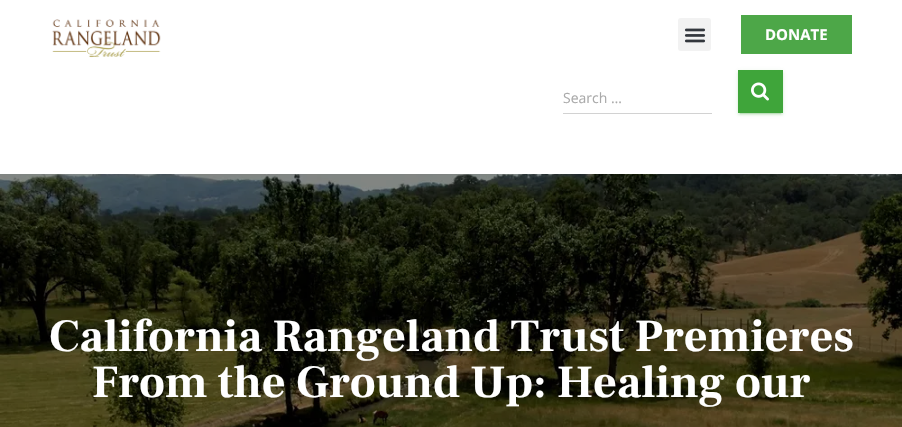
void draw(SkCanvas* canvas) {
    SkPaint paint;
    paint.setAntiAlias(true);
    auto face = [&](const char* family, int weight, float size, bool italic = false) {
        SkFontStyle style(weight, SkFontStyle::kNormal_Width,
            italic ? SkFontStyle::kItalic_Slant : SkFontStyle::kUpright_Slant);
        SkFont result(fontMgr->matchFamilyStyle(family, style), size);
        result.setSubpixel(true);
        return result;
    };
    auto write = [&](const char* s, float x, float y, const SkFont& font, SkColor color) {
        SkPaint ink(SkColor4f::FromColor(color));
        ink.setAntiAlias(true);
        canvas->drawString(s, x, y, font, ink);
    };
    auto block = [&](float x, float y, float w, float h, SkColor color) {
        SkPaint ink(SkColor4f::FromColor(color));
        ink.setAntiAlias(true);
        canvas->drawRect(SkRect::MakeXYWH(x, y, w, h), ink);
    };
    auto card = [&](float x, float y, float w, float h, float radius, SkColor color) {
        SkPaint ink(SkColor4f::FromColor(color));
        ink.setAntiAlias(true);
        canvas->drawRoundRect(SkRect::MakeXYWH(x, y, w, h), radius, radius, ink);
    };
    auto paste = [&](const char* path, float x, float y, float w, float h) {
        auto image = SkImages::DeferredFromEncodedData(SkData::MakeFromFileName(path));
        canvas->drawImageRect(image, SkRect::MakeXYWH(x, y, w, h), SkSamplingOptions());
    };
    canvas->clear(SK_ColorWHITE);
    paste("pic1.png", 52, 19, 109, 39);
    card(678, 18, 33, 33, 3, SkColorSetRGB(242, 242, 242));
    paste("pic2.png", 684, 28, 22, 15);
    block(741, 15, 111, 39, SkColorSetRGB(77, 167, 72));
    auto kFont1 = face("Open Sans", 700, 15);
    write("DONATE", 765, 40, kFont1, SK_ColorWHITE);
    auto kFont2 = face("Open Sans", 400, 14);
    write("Search …", 563, 103, kFont2, SkColorSetRGB(170, 170, 170));
    block(563, 113, 149, 1, SkColorSetRGB(210, 210, 210));
    paint.setColor(SkColorSetARGB(31, 63, 165, 58));
    paint.setMaskFilter(SkMaskFilter::MakeBlur(kNormal_SkBlurStyle, 2.5f));
    canvas->drawRect(SkRect::MakeXYWH(738, 71, 45, 43), paint);
    paint.setMaskFilter(nullptr);
    paint.setColor(SkColorSetARGB(51, 63, 165, 58));
    paint.setMaskFilter(SkMaskFilter::MakeBlur(kNormal_SkBlurStyle, 0.5f));
    canvas->drawRect(SkRect::MakeXYWH(740, 75, 41, 39), paint);
    paint.setMaskFilter(nullptr);
    paint.setColor(SkColorSetARGB(36, 63, 165, 58));
    paint.setMaskFilter(SkMaskFilter::MakeBlur(kNormal_SkBlurStyle, 1));
    canvas->drawRect(SkRect::MakeXYWH(738, 72, 45, 43), paint);
    paint.setMaskFilter(nullptr);
    block(738, 70, 45, 43, SkColorSetRGB(63, 165, 58));
    paste("pic3.png", 751, 82, 18, 19);
    paste("pic4.png", 0, 174, 902, 253);
    auto kFont3 = face("Frank Ruhl Libre", 700, 46);
    write("California Rangeland Trust Premieres", 49, 351, kFont3, SK_ColorWHITE);
    write("From the Ground Up: Healing our", 92, 397, kFont3, SK_ColorWHITE);
}
